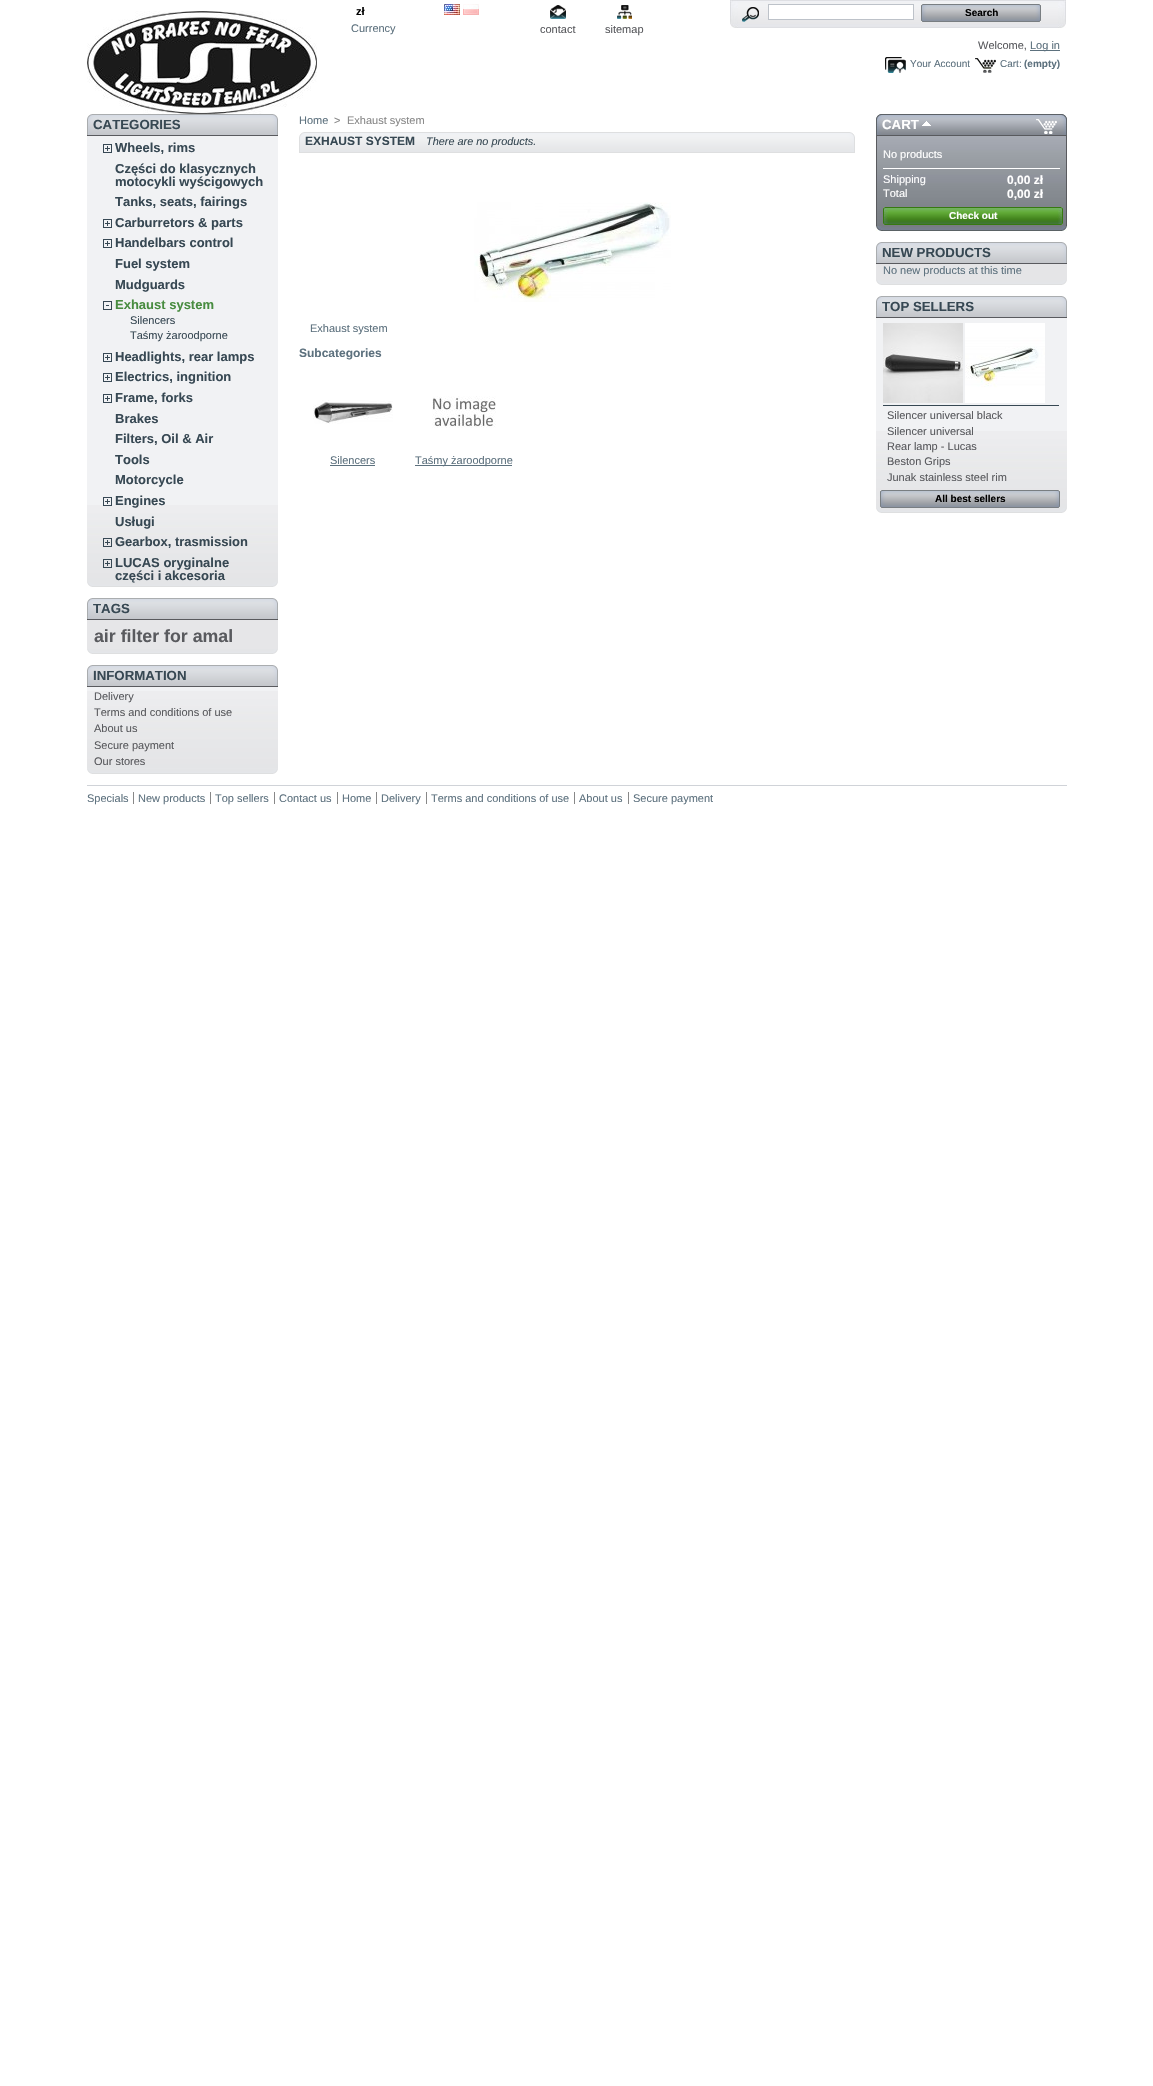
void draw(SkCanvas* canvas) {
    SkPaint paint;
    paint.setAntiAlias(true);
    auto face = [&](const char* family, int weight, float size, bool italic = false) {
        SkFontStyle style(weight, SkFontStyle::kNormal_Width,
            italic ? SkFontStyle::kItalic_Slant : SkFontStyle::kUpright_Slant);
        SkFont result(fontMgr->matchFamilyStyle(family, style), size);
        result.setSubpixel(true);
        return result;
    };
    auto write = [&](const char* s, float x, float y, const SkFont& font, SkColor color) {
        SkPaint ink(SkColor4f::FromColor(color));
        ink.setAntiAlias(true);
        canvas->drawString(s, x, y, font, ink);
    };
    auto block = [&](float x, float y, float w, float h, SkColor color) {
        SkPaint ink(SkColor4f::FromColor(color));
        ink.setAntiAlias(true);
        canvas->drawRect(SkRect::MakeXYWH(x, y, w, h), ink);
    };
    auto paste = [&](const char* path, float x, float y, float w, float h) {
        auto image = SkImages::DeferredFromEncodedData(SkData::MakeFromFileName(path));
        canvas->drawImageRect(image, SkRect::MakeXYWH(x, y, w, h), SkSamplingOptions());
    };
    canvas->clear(SK_ColorWHITE);
    paste("pic1.png", 87, 11, 230, 103);
    auto kFont1 = face("Liberation Sans", 700, 11);
    write("zł", 356, 15, kFont1, SK_ColorBLACK);
    auto kFont2 = face("Liberation Sans", 400, 11);
    write("Currency", 351, 32, kFont2, SkColorSetRGB(93, 113, 126));
    paste("pic2.png", 444, 4, 16, 11);
    paste("pic3.png", 463, 4, 16, 11);
    paste("pic4.png", 730, 0, 336, 28);
    paste("pic5.png", 742, 7, 17, 15);
    paint.setColor(SK_ColorWHITE);
    canvas->drawRect(SkRect::MakeXYWH(768.5f, 4.5f, 145, 15), paint);
    paint.setStyle(SkPaint::kStroke_Style);
    paint.setStrokeWidth(1);
    paint.setColor(SkColorSetRGB(189, 194, 201));
    canvas->drawRect(SkRect::MakeXYWH(768.5f, 4.5f, 145, 15), paint);
    block(921, 4, 120, 18, SkColorSetRGB(239, 239, 239));
    paste("pic6.png", 921, 4, 120, 18);
    auto kFont3 = face("Liberation Sans", 700, 10);
    write("Search", 965, 16, kFont3, SK_ColorBLACK);
    paste("pic7.png", 550, 5, 16, 14);
    write("contact", 540, 33, kFont2, SkColorSetRGB(89, 90, 94));
    paste("pic8.png", 617, 5, 15, 14);
    write("sitemap", 605, 33, kFont2, SkColorSetRGB(89, 90, 94));
    write("Welcome,", 978, 49, kFont2, SkColorSetRGB(89, 90, 94));
    block(1030, 50, 30, 1, SkColorSetRGB(93, 113, 126));
    write("Log in", 1030, 49, kFont2, SkColorSetRGB(93, 113, 126));
    paste("pic9.png", 885, 57, 21, 16);
    auto kFont4 = face("Liberation Sans", 400, 10);
    write("Your Account", 910, 67, kFont4, SkColorSetRGB(93, 113, 126));
    paste("pic10.png", 975, 58, 21, 15);
    write("Cart:", 1000, 67, kFont4, SkColorSetRGB(93, 113, 126));
    write("(empty)", 1024, 67, kFont3, SkColorSetRGB(93, 113, 126));
    paste("pic11.png", 87, 582, 191, 5);
    paste("pic12.png", 87, 114, 191, 21);
    block(87, 135, 191, 1, SkColorSetRGB(89, 90, 94));
    auto kFont5 = face("Liberation Sans", 700, 13.25f);
    write("CATEGORIES", 93, 129, kFont5, SkColorSetRGB(55, 72, 83));
    block(87, 136, 191, 369, SkColorSetRGB(241, 242, 244));
    paste("pic13.png", 87, 505, 191, 77);
    paste("pic14.png", 103, 144, 9, 9);
    auto kFont6 = face("Liberation Sans", 700, 13);
    write("Wheels, rims", 115, 152, kFont6, SkColorSetRGB(55, 72, 83));
    write("Części do klasycznych", 115, 173, kFont6, SkColorSetRGB(55, 72, 83));
    write("motocykli wyścigowych", 115, 186, kFont6, SkColorSetRGB(55, 72, 83));
    write("Tanks, seats, fairings", 115, 206, kFont6, SkColorSetRGB(55, 72, 83));
    paste("pic14.png", 103, 219, 9, 9);
    write("Carburretors & parts", 115, 227, kFont6, SkColorSetRGB(55, 72, 83));
    paste("pic14.png", 103, 239, 9, 9);
    write("Handelbars control", 115, 247, kFont6, SkColorSetRGB(55, 72, 83));
    write("Fuel system", 115, 268, kFont6, SkColorSetRGB(55, 72, 83));
    write("Mudguards", 115, 289, kFont6, SkColorSetRGB(55, 72, 83));
    paste("pic15.png", 103, 301, 9, 9);
    write("Exhaust system", 115, 309, kFont6, SkColorSetRGB(72, 140, 64));
    write("Silencers", 130, 324, kFont2, SkColorSetRGB(55, 72, 83));
    write("Taśmy żaroodporne", 130, 339, kFont2, SkColorSetRGB(55, 72, 83));
    paste("pic14.png", 103, 353, 9, 9);
    write("Headlights, rear lamps", 115, 361, kFont6, SkColorSetRGB(55, 72, 83));
    paste("pic14.png", 103, 373, 9, 9);
    write("Electrics, ingnition", 115, 381, kFont6, SkColorSetRGB(55, 72, 83));
    paste("pic14.png", 103, 394, 9, 9);
    write("Frame, forks", 115, 402, kFont6, SkColorSetRGB(55, 72, 83));
    write("Brakes", 115, 423, kFont6, SkColorSetRGB(55, 72, 83));
    write("Filters, Oil & Air", 115, 443, kFont6, SkColorSetRGB(55, 72, 83));
    write("Tools", 115, 464, kFont6, SkColorSetRGB(55, 72, 83));
    write("Motorcycle", 115, 484, kFont6, SkColorSetRGB(55, 72, 83));
    paste("pic14.png", 103, 497, 9, 9);
    write("Engines", 115, 505, kFont6, SkColorSetRGB(55, 72, 83));
    write("Usługi", 115, 526, kFont6, SkColorSetRGB(55, 72, 83));
    paste("pic16.png", 103, 538, 9, 9);
    write("Gearbox, trasmission", 115, 546, kFont6, SkColorSetRGB(55, 72, 83));
    paste("pic17.png", 103, 559, 9, 9);
    write("LUCAS oryginalne", 115, 567, kFont6, SkColorSetRGB(55, 72, 83));
    write("części i akcesoria", 115, 580, kFont6, SkColorSetRGB(55, 72, 83));
    paste("pic11.png", 87, 649, 191, 5);
    paste("pic12.png", 87, 598, 191, 21);
    block(87, 619, 191, 1, SkColorSetRGB(89, 90, 94));
    write("TAGS", 93, 613, kFont5, SkColorSetRGB(55, 72, 83));
    block(87, 620, 191, 29, SkColorSetRGB(230, 230, 232));
    auto kFont7 = face("Liberation Sans", 700, 17.75f);
    write("air filter for amal", 94, 642, kFont7, SkColorSetRGB(89, 90, 94));
    paste("pic11.png", 87, 769, 191, 5);
    paste("pic12.png", 87, 665, 191, 21);
    block(87, 686, 191, 1, SkColorSetRGB(89, 90, 94));
    write("INFORMATION", 93, 680, kFont5, SkColorSetRGB(55, 72, 83));
    block(87, 687, 191, 4, SkColorSetRGB(241, 242, 244));
    paste("pic18.png", 87, 691, 191, 78);
    write("Delivery", 94, 700, kFont2, SkColorSetRGB(89, 90, 94));
    write("Terms and conditions of use", 94, 716, kFont2, SkColorSetRGB(89, 90, 94));
    write("About us", 94, 732, kFont2, SkColorSetRGB(89, 90, 94));
    write("Secure payment", 94, 749, kFont2, SkColorSetRGB(89, 90, 94));
    write("Our stores", 94, 765, kFont2, SkColorSetRGB(89, 90, 94));
    write("Home", 299, 124, kFont2, SkColorSetRGB(93, 113, 126));
    write(">", 334, 124, kFont2, SkColorSetRGB(136, 136, 136));
    write("Exhaust system", 347, 124, kFont2, SkColorSetRGB(136, 136, 136));
    paste("pic19.png", 299, 132, 556, 21);
    auto kFont8 = face("Liberation Sans", 700, 12);
    write("EXHAUST SYSTEM", 305, 145, kFont8, SkColorSetRGB(55, 72, 83));
    auto kFont9 = face("Liberation Sans", 400, 10.9f, true);
    write("There are no products.", 426, 145, kFont9, SkColorSetRGB(55, 72, 83));
    paste("pic20.png", 474, 202, 197, 100);
    write("Exhaust system", 310, 332, kFont2, SkColorSetRGB(93, 113, 126));
    write("Subcategories", 299, 357, kFont8, SkColorSetRGB(93, 113, 126));
    paste("pic21.png", 313, 400, 80, 24);
    write("Silencers", 330, 464, kFont2, SkColorSetRGB(93, 113, 126));
    block(330, 465, 45, 1, SkColorSetRGB(93, 113, 126));
    paste("pic22.png", 432, 396, 64, 32);
    block(415, 465, 97, 1, SkColorSetRGB(93, 113, 126));
    write("Taśmy żaroodporne", 415, 464, kFont2, SkColorSetRGB(93, 113, 126));
    paste("pic23.png", 876, 226, 191, 5);
    paste("pic24.png", 876, 114, 191, 21);
    block(876, 135, 191, 1, SkColorSetRGB(89, 90, 94));
    write("CART", 882, 129, kFont5, SK_ColorWHITE);
    paste("pic25.png", 922, 121, 9, 5);
    paste("pic26.png", 877, 136, 189, 90);
    block(1066, 136, 1, 90, SkColorSetRGB(89, 90, 94));
    block(876, 136, 1, 90, SkColorSetRGB(89, 90, 94));
    write("No products", 883, 158, kFont2, SK_ColorWHITE);
    block(883, 168, 177, 1, SK_ColorWHITE);
    write("Shipping", 883, 183, kFont2, SK_ColorWHITE);
    write("0,00 zł", 1007, 184, kFont8, SK_ColorWHITE);
    write("Total", 883, 197, kFont2, SK_ColorWHITE);
    write("0,00 zł", 1007, 198, kFont8, SK_ColorWHITE);
    paste("pic27.png", 883, 207, 180, 18);
    write("Check out", 949, 219, kFont3, SK_ColorWHITE);
    paste("pic11.png", 876, 280, 191, 5);
    paste("pic12.png", 876, 242, 191, 21);
    block(876, 263, 191, 1, SkColorSetRGB(89, 90, 94));
    write("NEW PRODUCTS", 882, 257, kFont5, SkColorSetRGB(55, 72, 83));
    block(876, 264, 191, 16, SkColorSetRGB(229, 229, 231));
    write("No new products at this time", 883, 274, kFont2, SkColorSetRGB(93, 113, 126));
    paste("pic11.png", 876, 508, 191, 5);
    paste("pic12.png", 876, 296, 191, 21);
    block(876, 317, 191, 1, SkColorSetRGB(89, 90, 94));
    write("TOP SELLERS", 882, 311, kFont5, SkColorSetRGB(55, 72, 83));
    block(876, 318, 191, 113, SkColorSetRGB(241, 242, 244));
    paste("pic13.png", 876, 431, 191, 77);
    paste("pic28.png", 883, 323, 80, 80);
    paste("pic29.png", 965, 323, 80, 80);
    block(883, 405, 176, 1, SkColorSetRGB(55, 72, 83));
    write("Silencer universal black", 887, 419, kFont2, SkColorSetRGB(89, 90, 94));
    write("Silencer universal", 887, 435, kFont2, SkColorSetRGB(89, 90, 94));
    write("Rear lamp - Lucas", 887, 450, kFont2, SkColorSetRGB(89, 90, 94));
    write("Beston Grips", 887, 465, kFont2, SkColorSetRGB(89, 90, 94));
    write("Junak stainless steel rim", 887, 481, kFont2, SkColorSetRGB(89, 90, 94));
    paste("pic30.png", 880, 490, 180, 18);
    write("All best sellers", 935, 502, kFont3, SK_ColorBLACK);
    block(87, 785, 980, 1, SkColorSetRGB(208, 211, 216));
    write("Specials", 87, 802, kFont2, SkColorSetRGB(93, 113, 126));
    write("New products", 138, 802, kFont2, SkColorSetRGB(93, 113, 126));
    block(133, 792, 1, 12, SkColorSetRGB(136, 136, 136));
    write("Top sellers", 215, 802, kFont2, SkColorSetRGB(93, 113, 126));
    block(210, 792, 1, 12, SkColorSetRGB(136, 136, 136));
    write("Contact us", 279, 802, kFont2, SkColorSetRGB(93, 113, 126));
    block(274, 792, 1, 12, SkColorSetRGB(136, 136, 136));
    write("Home", 342, 802, kFont2, SkColorSetRGB(93, 113, 126));
    block(337, 792, 1, 12, SkColorSetRGB(136, 136, 136));
    write("Delivery", 381, 802, kFont2, SkColorSetRGB(93, 113, 126));
    block(376, 792, 1, 12, SkColorSetRGB(136, 136, 136));
    write("Terms and conditions of use", 431, 802, kFont2, SkColorSetRGB(93, 113, 126));
    block(426, 792, 1, 12, SkColorSetRGB(136, 136, 136));
    write("About us", 579, 802, kFont2, SkColorSetRGB(93, 113, 126));
    block(574, 792, 1, 12, SkColorSetRGB(136, 136, 136));
    write("Secure payment", 633, 802, kFont2, SkColorSetRGB(93, 113, 126));
    block(628, 792, 1, 12, SkColorSetRGB(136, 136, 136));
}
